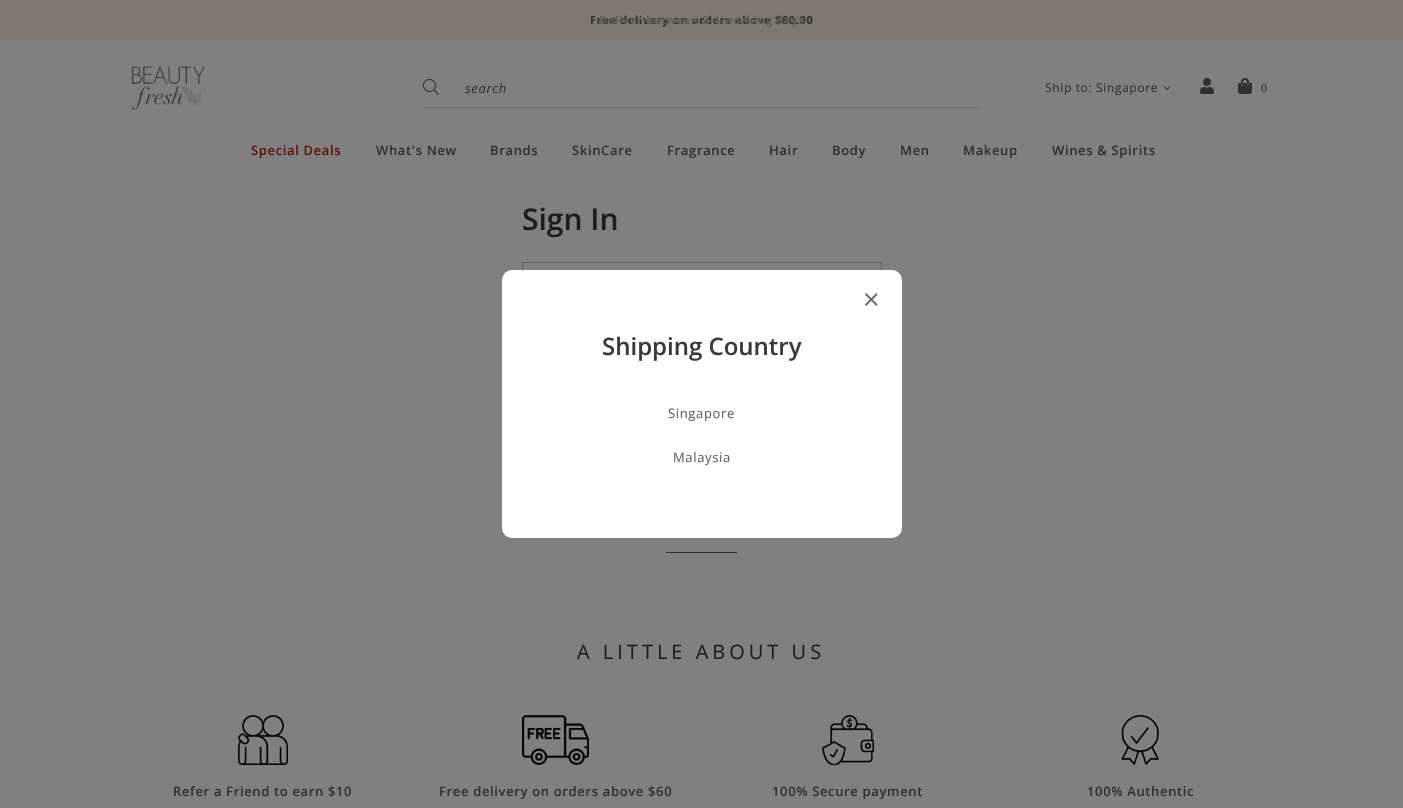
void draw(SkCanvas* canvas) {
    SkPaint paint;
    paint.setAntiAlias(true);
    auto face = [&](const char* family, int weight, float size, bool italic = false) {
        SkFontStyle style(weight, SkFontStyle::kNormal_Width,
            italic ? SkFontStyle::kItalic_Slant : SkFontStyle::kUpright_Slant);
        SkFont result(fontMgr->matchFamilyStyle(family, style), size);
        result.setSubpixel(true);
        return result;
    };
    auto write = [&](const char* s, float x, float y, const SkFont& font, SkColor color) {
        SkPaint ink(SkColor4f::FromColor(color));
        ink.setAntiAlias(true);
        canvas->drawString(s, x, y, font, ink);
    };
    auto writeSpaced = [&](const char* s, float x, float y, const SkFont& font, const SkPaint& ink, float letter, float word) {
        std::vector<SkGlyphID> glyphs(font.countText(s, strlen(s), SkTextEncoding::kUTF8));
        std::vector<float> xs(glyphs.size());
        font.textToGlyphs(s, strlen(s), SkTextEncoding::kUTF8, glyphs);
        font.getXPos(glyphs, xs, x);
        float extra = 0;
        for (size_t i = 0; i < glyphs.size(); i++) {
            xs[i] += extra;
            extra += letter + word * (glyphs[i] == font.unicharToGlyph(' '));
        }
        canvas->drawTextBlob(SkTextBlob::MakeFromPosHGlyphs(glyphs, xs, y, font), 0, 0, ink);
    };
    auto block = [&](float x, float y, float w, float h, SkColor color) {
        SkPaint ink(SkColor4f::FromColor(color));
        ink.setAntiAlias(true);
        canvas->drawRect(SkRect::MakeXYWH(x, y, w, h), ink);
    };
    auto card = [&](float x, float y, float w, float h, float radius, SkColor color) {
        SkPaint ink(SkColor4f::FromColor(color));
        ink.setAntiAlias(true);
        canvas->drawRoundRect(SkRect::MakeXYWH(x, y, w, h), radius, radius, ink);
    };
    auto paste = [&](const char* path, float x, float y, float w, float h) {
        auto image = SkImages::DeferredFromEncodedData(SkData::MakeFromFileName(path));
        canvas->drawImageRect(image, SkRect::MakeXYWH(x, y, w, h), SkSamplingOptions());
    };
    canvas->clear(SkColorSetRGB(128, 128, 128));
    block(0, 0, 1403, 40, SkColorSetRGB(125, 120, 113));
    auto kFont1 = face("Open Sans", 700, 11);
    paint.setColor(SkColorSetRGB(48, 49, 49));
    writeSpaced("Free delivery on orders above $60.00", 590, 24, kFont1, paint, 0.65f, 0);
    paint.setColor(SkColorSetRGB(98, 95, 91));
    writeSpaced("Deliver between 2-4 working days", 599, 24, kFont1, paint, 0.65f, 0);
    paste("pic1.png", 132, 66, 73, 44);
    paste("pic2.png", 423, 79, 16, 16);
    block(424, 107, 555, 1, SkColorSetRGB(112, 112, 111));
    auto kFont2 = face("Open Sans", 400, 13, true);
    paint.setColor(SkColorSetRGB(48, 49, 49));
    writeSpaced("search", 465, 93, kFont2, paint, 0.65f, 0);
    auto kFont3 = face("Open Sans", 400, 12);
    writeSpaced("Ship to: Singapore", 1045, 92, kFont3, paint, 0.65f, 0);
    paste("pic3.png", 1164, 86, 7, 5);
    paste("pic4.png", 1200, 78, 14, 16);
    paste("pic5.png", 1238, 78, 14, 16);
    auto kFont4 = face("Liberation Serif", 400, 12);
    writeSpaced("0", 1261, 92, kFont4, paint, 0.65f, 0);
    auto kFont5 = face("Open Sans", 600, 13);
    paint.setColor(SkColorSetRGB(94, 20, 13));
    writeSpaced("Special Deals", 251, 155, kFont5, paint, 0.65f, 0);
    paint.setColor(SkColorSetRGB(48, 49, 49));
    writeSpaced("What's New", 376, 155, kFont5, paint, 0.65f, 0);
    writeSpaced("Brands", 490, 155, kFont5, paint, 0.65f, 0);
    writeSpaced("SkinCare", 572, 155, kFont5, paint, 0.65f, 0);
    writeSpaced("Fragrance", 667, 155, kFont5, paint, 0.65f, 0);
    writeSpaced("Hair", 769, 155, kFont5, paint, 0.65f, 0);
    writeSpaced("Body", 832, 155, kFont5, paint, 0.65f, 0);
    writeSpaced("Men", 900, 155, kFont5, paint, 0.65f, 0);
    writeSpaced("Makeup", 963, 155, kFont5, paint, 0.65f, 0);
    writeSpaced("Wines & Spirits", 1052, 155, kFont5, paint, 0.65f, 0);
    auto kFont6 = face("Open Sans", 600, 30);
    write("Sign In", 522, 230, kFont6, SkColorSetRGB(29, 29, 29));
    paint.setStyle(SkPaint::kStroke_Style);
    paint.setStrokeWidth(1);
    paint.setColor(SkColorSetRGB(94, 94, 94));
    canvas->drawRect(SkRect::MakeXYWH(522.5f, 262.5f, 359, 38), paint);
    block(666, 552, 71, 1, SkColorSetRGB(48, 49, 49));
    auto kFont7 = face("Open Sans", 400, 20);
    paint.setStyle(SkPaint::kFill_Style);
    paint.setColor(SkColorSetRGB(29, 29, 29));
    writeSpaced("A LITTLE ABOUT US", 577, 659, kFont7, paint, 4, 0);
    paste("pic6.png", 238, 715, 50, 50);
    paint.setColor(SkColorSetRGB(48, 49, 49));
    writeSpaced("Refer a Friend to earn $10", 173, 796, kFont5, paint, 0.65f, 0);
    paste("pic7.png", 522, 715, 67, 50);
    writeSpaced("Free delivery on orders above $60", 439, 796, kFont5, paint, 0.65f, 0);
    paste("pic8.png", 822, 715, 52, 50);
    writeSpaced("100% Secure payment", 772, 796, kFont5, paint, 0.65f, 0);
    paste("pic9.png", 1121, 715, 38, 50);
    writeSpaced("100% Authentic", 1087, 796, kFont5, paint, 0.65f, 0);
    card(502, 270, 400, 268, 10, SK_ColorWHITE);
    paste("pic10.png", 865, 293, 13, 13);
    auto kFont8 = face("Open Sans", 600, 24);
    write("Shipping Country", 602, 355, kFont8, SkColorSetRGB(58, 58, 58));
    auto kFont9 = face("Open Sans", 400, 13);
    paint.setColor(SkColorSetRGB(96, 97, 97));
    writeSpaced("Singapore", 668, 418, kFont9, paint, 0.65f, 0);
    writeSpaced("Malaysia", 673, 462, kFont9, paint, 0.65f, 0);
}
